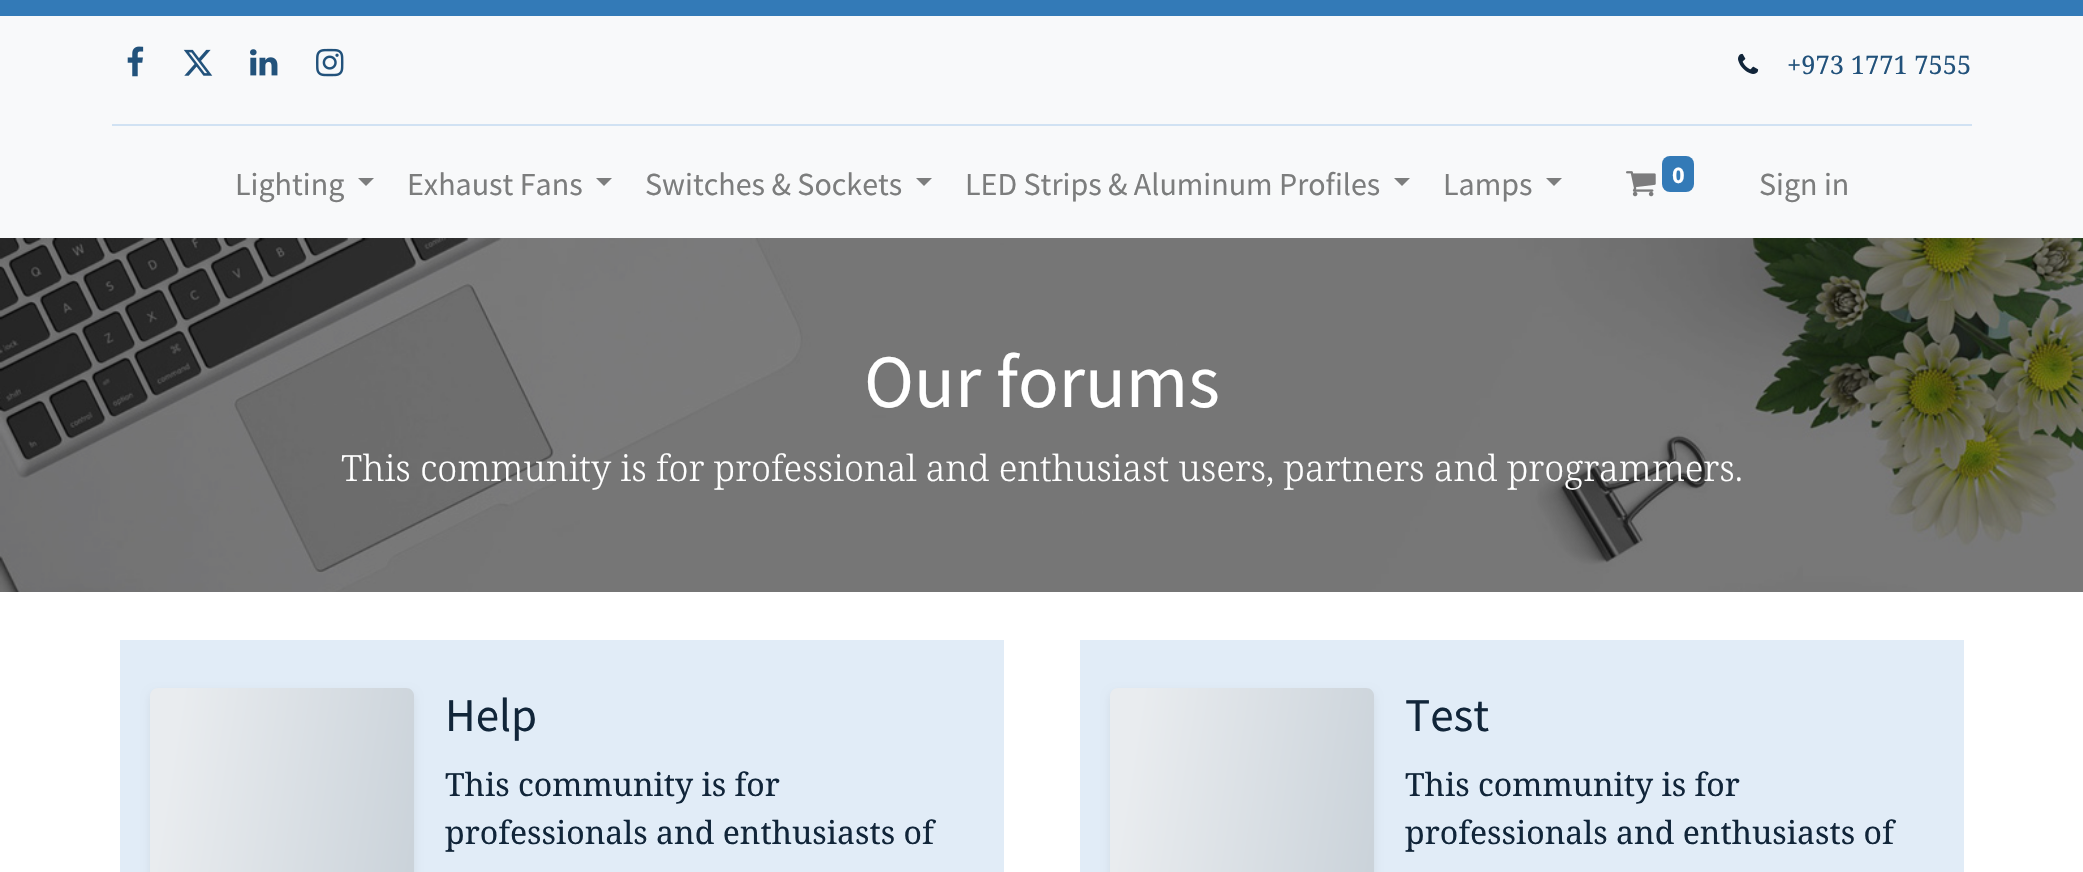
void draw(SkCanvas* canvas) {
    SkPaint paint;
    paint.setAntiAlias(true);
    auto face = [&](const char* family, int weight, float size, bool italic = false) {
        SkFontStyle style(weight, SkFontStyle::kNormal_Width,
            italic ? SkFontStyle::kItalic_Slant : SkFontStyle::kUpright_Slant);
        SkFont result(fontMgr->matchFamilyStyle(family, style), size);
        result.setSubpixel(true);
        return result;
    };
    auto write = [&](const char* s, float x, float y, const SkFont& font, SkColor color) {
        SkPaint ink(SkColor4f::FromColor(color));
        ink.setAntiAlias(true);
        canvas->drawString(s, x, y, font, ink);
    };
    auto block = [&](float x, float y, float w, float h, SkColor color) {
        SkPaint ink(SkColor4f::FromColor(color));
        ink.setAntiAlias(true);
        canvas->drawRect(SkRect::MakeXYWH(x, y, w, h), ink);
    };
    auto card = [&](float x, float y, float w, float h, float radius, SkColor color) {
        SkPaint ink(SkColor4f::FromColor(color));
        ink.setAntiAlias(true);
        canvas->drawRoundRect(SkRect::MakeXYWH(x, y, w, h), radius, radius, ink);
    };
    auto paste = [&](const char* path, float x, float y, float w, float h) {
        auto image = SkImages::DeferredFromEncodedData(SkData::MakeFromFileName(path));
        canvas->drawImageRect(image, SkRect::MakeXYWH(x, y, w, h), SkSamplingOptions());
    };
    canvas->clear(SK_ColorWHITE);
    block(0, 16, 2083, 222, SkColorSetRGB(248, 249, 250));
    block(0, 0, 2083, 16, SkColorSetRGB(51, 122, 183));
    paste("pic1.png", 127, 46, 17, 31);
    paste("pic2.png", 183, 49, 30, 27);
    paste("pic3.png", 250, 49, 28, 27);
    paste("pic4.png", 316, 48, 28, 29);
    paste("pic5.png", 1738, 53, 21, 21);
    auto kFont1 = face("Noto Serif", 400, 25.5f);
    write("+973 1771 7555", 1787, 74, kFont1, SkColorSetRGB(34, 82, 123));
    block(112, 124, 1860, 2, SkColorSetRGB(209, 226, 243));
    auto kFont2 = face("Source Sans Pro", 400, 32);
    write("Lighting", 235, 195, kFont2, SkColorSetRGB(124, 125, 125));
    paint.setColor(SkColorSetRGB(124, 125, 125));
    canvas->drawPath(SkPathBuilder().moveTo(358, 178).lineTo(374, 178).lineTo(366, 186).close().detach(), paint);
    write("Exhaust Fans", 407, 195, kFont2, SkColorSetRGB(124, 125, 125));
    canvas->drawPath(SkPathBuilder().moveTo(596, 178).lineTo(612, 178).lineTo(604, 186).close().detach(), paint);
    write("Switches & Sockets", 645, 195, kFont2, SkColorSetRGB(124, 125, 125));
    canvas->drawPath(SkPathBuilder().moveTo(916, 178).lineTo(932, 178).lineTo(924, 186).close().detach(), paint);
    write("LED Strips & Aluminum Profiles", 965, 195, kFont2, SkColorSetRGB(124, 125, 125));
    canvas->drawPath(SkPathBuilder().moveTo(1394, 178).lineTo(1410, 178).lineTo(1402, 186).close().detach(), paint);
    write("Lamps", 1443, 195, kFont2, SkColorSetRGB(124, 125, 125));
    canvas->drawPath(SkPathBuilder().moveTo(1546, 178).lineTo(1562, 178).lineTo(1554, 186).close().detach(), paint);
    paste("pic6.png", 1626, 171, 30, 26);
    card(1662, 156, 32, 36, 8, SkColorSetRGB(51, 122, 183));
    auto kFont3 = face("Source Sans Pro", 700, 24);
    write("0", 1672, 183, kFont3, SK_ColorWHITE);
    write("Sign in", 1759, 195, kFont2, SkColorSetRGB(124, 125, 125));
    paste("pic7.png", 0, 238, 2083, 354);
    auto kFont4 = face("Source Sans Pro", 400, 75.25f);
    write("Our forums", 864, 407, kFont4, SK_ColorWHITE);
    auto kFont5 = face("Noto Serif", 300, 36);
    write("This community is for professional and enthusiast users, partners and programmers.", 341, 481, kFont5, SK_ColorWHITE);
    block(120, 640, 884, 232, SkColorSetRGB(225, 236, 247));
    paint.setColor(SkColorSetARGB(18, 0, 0, 0));
    paint.setMaskFilter(SkMaskFilter::MakeBlur(kNormal_SkBlurStyle, 4));
    canvas->drawRoundRect(SkRect::MakeXYWH(150, 692, 264, 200), 8, 8, paint);
    paint.setMaskFilter(nullptr);
    {
        const SkColor colors[] = {SkColorSetRGB(233, 236, 239), SkColorSetRGB(203, 211, 218)};
        const float stops[] = {0.1f, 0.9f};
        const SkPoint ends[] = {{125, 843}, {439, 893}};
        paint.setShader(SkGradientShader::MakeLinear(ends, colors, stops, 2, SkTileMode::kClamp));
        paint.setAlpha(255);
    }
    canvas->drawPath(SkPathBuilder().moveTo(158, 688).lineTo(406, 688).cubicTo(410.5f, 688, 414, 691.5f, 414, 696).lineTo(414, 872).lineTo(150, 872).lineTo(150, 696).cubicTo(150, 691.5f, 153.5f, 688, 158, 688).close().detach(), paint);
    auto kFont6 = face("Source Sans Pro", 400, 47);
    write("Help", 445, 731, kFont6, SkColorSetRGB(17, 37, 57));
    auto kFont7 = face("Noto Serif", 400, 32);
    write("This community is for", 445, 796, kFont7, SkColorSetRGB(17, 37, 57));
    write("professionals and enthusiasts of", 445, 844, kFont7, SkColorSetRGB(17, 37, 57));
    block(1080, 640, 884, 232, SkColorSetRGB(225, 236, 247));
    paint.setShader(nullptr);
    paint.setColor(SkColorSetARGB(18, 0, 0, 0));
    paint.setMaskFilter(SkMaskFilter::MakeBlur(kNormal_SkBlurStyle, 4));
    canvas->drawRoundRect(SkRect::MakeXYWH(1110, 692, 264, 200), 8, 8, paint);
    paint.setMaskFilter(nullptr);
    {
        const SkColor colors[] = {SkColorSetRGB(233, 236, 239), SkColorSetRGB(203, 211, 218)};
        const float stops[] = {0.1f, 0.9f};
        const SkPoint ends[] = {{1085, 843}, {1399, 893}};
        paint.setShader(SkGradientShader::MakeLinear(ends, colors, stops, 2, SkTileMode::kClamp));
        paint.setAlpha(255);
    }
    canvas->drawPath(SkPathBuilder().moveTo(1118, 688).lineTo(1366, 688).cubicTo(1370.5f, 688, 1374, 691.5f, 1374, 696).lineTo(1374, 872).lineTo(1110, 872).lineTo(1110, 696).cubicTo(1110, 691.5f, 1113.5f, 688, 1118, 688).close().detach(), paint);
    write("Test", 1405, 731, kFont6, SkColorSetRGB(17, 37, 57));
    write("This community is for", 1405, 796, kFont7, SkColorSetRGB(17, 37, 57));
    write("professionals and enthusiasts of", 1405, 844, kFont7, SkColorSetRGB(17, 37, 57));
}
